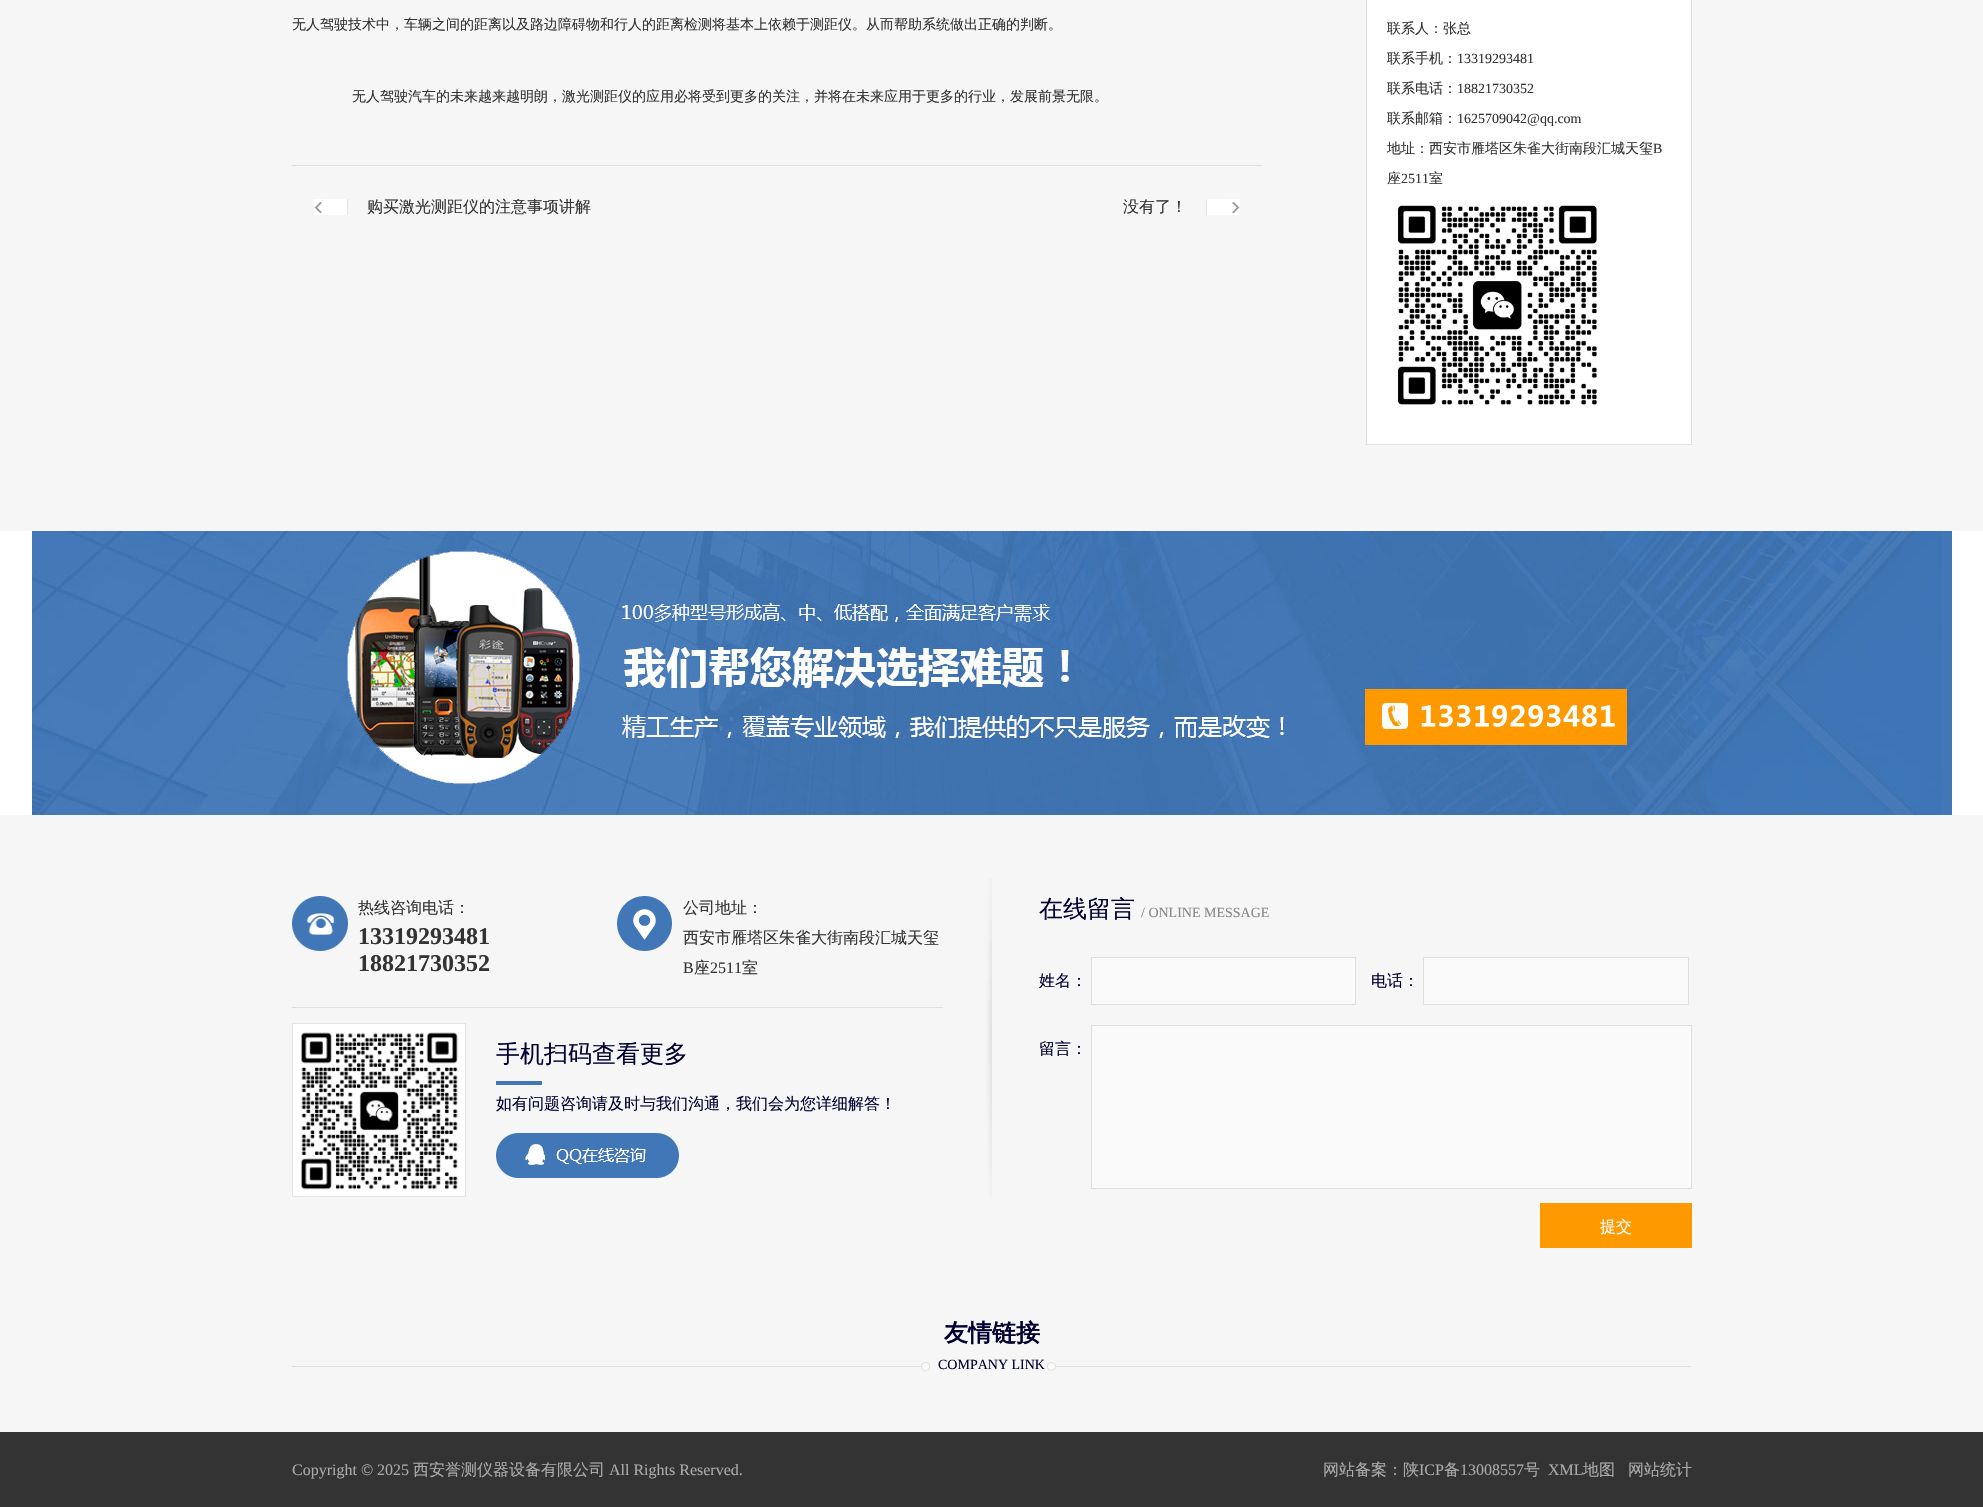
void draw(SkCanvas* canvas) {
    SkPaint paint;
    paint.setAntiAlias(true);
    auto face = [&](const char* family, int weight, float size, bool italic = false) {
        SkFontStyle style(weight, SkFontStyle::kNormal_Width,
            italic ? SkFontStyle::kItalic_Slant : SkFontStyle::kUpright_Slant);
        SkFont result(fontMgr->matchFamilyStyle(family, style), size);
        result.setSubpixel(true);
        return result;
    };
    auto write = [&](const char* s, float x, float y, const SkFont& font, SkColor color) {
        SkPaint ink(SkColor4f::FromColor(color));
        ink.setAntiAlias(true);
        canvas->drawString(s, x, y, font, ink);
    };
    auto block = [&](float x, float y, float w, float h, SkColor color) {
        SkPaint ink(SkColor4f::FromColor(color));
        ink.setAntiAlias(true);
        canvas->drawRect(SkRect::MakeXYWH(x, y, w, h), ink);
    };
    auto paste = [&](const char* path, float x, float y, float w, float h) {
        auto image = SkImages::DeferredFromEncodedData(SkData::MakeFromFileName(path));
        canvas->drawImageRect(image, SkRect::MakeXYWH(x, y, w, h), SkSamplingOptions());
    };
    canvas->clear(SK_ColorWHITE);
    block(0, 0, 1983, 531, SkColorSetRGB(246, 246, 246));
    block(292, 165, 970, 1, SkColorSetRGB(222, 223, 223));
    auto kFont1 = face("WenQuanYi Zen Hei", 500, 14);
    write("无人驾驶技术中，车辆之间的距离以及路边障碍物和行人的距离检测将基本上依赖于测距仪。从而帮助系统做出正确的判断。", 292, 29, kFont1, SkColorSetRGB(51, 51, 51));
    write("无人驾驶汽车的未来越来越明朗，激光测距仪的应用必将受到更多的关注，并将在未来应用于更多的行业，发展前景无限。", 352, 101, kFont1, SkColorSetRGB(51, 51, 51));
    paste("pic1.png", 314, 199, 34, 16);
    auto kFont2 = face("WenQuanYi Zen Hei", 500, 16);
    write("购买激光测距仪的注意事项讲解", 367, 212, kFont2, SkColorSetRGB(51, 51, 51));
    paste("pic2.png", 1206, 199, 34, 16);
    write("没有了！", 1123, 212, kFont2, SkColorSetRGB(51, 51, 51));
    paint.setColor(SK_ColorWHITE);
    canvas->drawRect(SkRect::MakeXYWH(1366.5f, -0.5f, 325, 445), paint);
    paint.setStyle(SkPaint::kStroke_Style);
    paint.setStrokeWidth(1);
    paint.setColor(SkColorSetRGB(222, 223, 223));
    canvas->drawRect(SkRect::MakeXYWH(1366.5f, -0.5f, 325, 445), paint);
    write("联系人：张总", 1387, 33, kFont1, SkColorSetRGB(51, 51, 51));
    write("联系手机：", 1387, 63, kFont1, SkColorSetRGB(51, 51, 51));
    auto kFont3 = face("Liberation Serif", 400, 14);
    write("13319293481", 1457, 63, kFont3, SkColorSetRGB(51, 51, 51));
    write("联系电话：", 1387, 93, kFont1, SkColorSetRGB(51, 51, 51));
    write("18821730352", 1457, 93, kFont3, SkColorSetRGB(51, 51, 51));
    write("联系邮箱：", 1387, 123, kFont1, SkColorSetRGB(51, 51, 51));
    write("1625709042@qq.com", 1457, 123, kFont3, SkColorSetRGB(51, 51, 51));
    write("地址：西安市雁塔区朱雀大街南段汇城天玺", 1387, 153, kFont1, SkColorSetRGB(51, 51, 51));
    write("B", 1653, 153, kFont3, SkColorSetRGB(51, 51, 51));
    write("座", 1387, 183, kFont1, SkColorSetRGB(51, 51, 51));
    write("2511", 1401, 183, kFont3, SkColorSetRGB(51, 51, 51));
    write("室", 1429, 183, kFont1, SkColorSetRGB(51, 51, 51));
    paste("pic3.png", 1397, 205, 200, 200);
    paste("pic4.png", 32, 531, 1920, 284);
    block(0, 815, 1983, 617, SkColorSetRGB(246, 246, 246));
    paste("pic5.png", 986, 878, 6, 319);
    block(292, 1007, 651, 1, SkColorSetRGB(223, 223, 223));
    paste("pic6.png", 292, 896, 56, 55);
    write("热线咨询电话：", 358, 913, kFont2, SkColorSetRGB(51, 51, 51));
    auto kFont4 = face("Liberation Serif", 700, 24);
    write("13319293481", 358, 944, kFont4, SkColorSetRGB(51, 51, 51));
    write("18821730352", 358, 971, kFont4, SkColorSetRGB(51, 51, 51));
    paste("pic7.png", 617, 896, 55, 55);
    write("公司地址：", 683, 913, kFont2, SkColorSetRGB(51, 51, 51));
    write("西安市雁塔区朱雀大街南段汇城天玺", 683, 943, kFont2, SkColorSetRGB(51, 51, 51));
    auto kFont5 = face("Liberation Serif", 400, 16);
    write("B", 683, 973, kFont5, SkColorSetRGB(51, 51, 51));
    write("座", 694, 973, kFont2, SkColorSetRGB(51, 51, 51));
    write("2511", 710, 973, kFont5, SkColorSetRGB(51, 51, 51));
    write("室", 742, 973, kFont2, SkColorSetRGB(51, 51, 51));
    paint.setColor(SkColorSetRGB(228, 228, 228));
    canvas->drawRect(SkRect::MakeXYWH(292.5f, 1023.5f, 173, 173), paint);
    paste("pic8.png", 293, 1024, 172, 172);
    auto kFont6 = face("WenQuanYi Zen Hei", 500, 24);
    write("手机扫码查看更多", 496, 1062, kFont6, SkColorSetRGB(0, 0, 51));
    block(496, 1081, 46, 4, SkColorSetRGB(65, 119, 183));
    write("如有问题咨询请及时与我们沟通，我们会为您详细解答！", 496, 1109, kFont2, SkColorSetRGB(0, 0, 51));
    paste("pic9.png", 496, 1133, 183, 45);
    write("在线留言", 1039, 917, kFont6, SkColorSetRGB(0, 0, 51));
    write("/ ONLINE MESSAGE", 1141, 917, kFont3, SkColorSetRGB(136, 136, 136));
    write("姓名：", 1039, 986, kFont2, SkColorSetRGB(0, 0, 51));
    paint.setStyle(SkPaint::kFill_Style);
    paint.setColor(SkColorSetRGB(250, 250, 250));
    canvas->drawRect(SkRect::MakeXYWH(1091.5f, 957.5f, 264, 47), paint);
    paint.setStyle(SkPaint::kStroke_Style);
    paint.setColor(SkColorSetRGB(223, 223, 223));
    canvas->drawRect(SkRect::MakeXYWH(1091.5f, 957.5f, 264, 47), paint);
    write("电话：", 1371, 986, kFont2, SkColorSetRGB(0, 0, 51));
    paint.setStyle(SkPaint::kFill_Style);
    paint.setColor(SkColorSetRGB(250, 250, 250));
    canvas->drawRect(SkRect::MakeXYWH(1423.5f, 957.5f, 265, 47), paint);
    paint.setStyle(SkPaint::kStroke_Style);
    paint.setColor(SkColorSetRGB(223, 223, 223));
    canvas->drawRect(SkRect::MakeXYWH(1423.5f, 957.5f, 265, 47), paint);
    write("留言：", 1039, 1054, kFont2, SkColorSetRGB(0, 0, 51));
    paint.setStyle(SkPaint::kFill_Style);
    paint.setColor(SkColorSetRGB(250, 250, 250));
    canvas->drawRect(SkRect::MakeXYWH(1091.5f, 1025.5f, 600, 163), paint);
    paint.setStyle(SkPaint::kStroke_Style);
    paint.setColor(SkColorSetRGB(223, 223, 223));
    canvas->drawRect(SkRect::MakeXYWH(1091.5f, 1025.5f, 600, 163), paint);
    block(1540, 1203, 152, 45, SkColorSetRGB(255, 153, 0));
    write("提交", 1600, 1232, kFont2, SK_ColorWHITE);
    auto kFont7 = face("WenQuanYi Zen Hei", 700, 24);
    write("友情链接", 944, 1341, kFont7, SkColorSetRGB(0, 0, 51));
    paste("pic10.png", 292, 1362, 1399, 9);
    write("COMPANY LINK", 938, 1369, kFont3, SkColorSetRGB(0, 0, 51));
    block(0, 1432, 1983, 75, SkColorSetRGB(51, 51, 51));
    write("Copyright © 2025", 292, 1475, kFont5, SkColorSetRGB(170, 170, 170));
    write("西安誉测仪器设备有限公司", 413, 1475, kFont2, SkColorSetRGB(170, 170, 170));
    write("All Rights Reserved.", 609, 1475, kFont5, SkColorSetRGB(170, 170, 170));
    write("网站备案：陕", 1323, 1475, kFont2, SkColorSetRGB(170, 170, 170));
    write("ICP", 1419, 1475, kFont5, SkColorSetRGB(170, 170, 170));
    write("备", 1444, 1475, kFont2, SkColorSetRGB(170, 170, 170));
    write("13008557", 1460, 1475, kFont5, SkColorSetRGB(170, 170, 170));
    write("号", 1524, 1475, kFont2, SkColorSetRGB(170, 170, 170));
    write("XML", 1548, 1475, kFont5, SkColorSetRGB(170, 170, 170));
    write("地图", 1583, 1475, kFont2, SkColorSetRGB(170, 170, 170));
    write("网站统计", 1628, 1475, kFont2, SkColorSetRGB(170, 170, 170));
}
